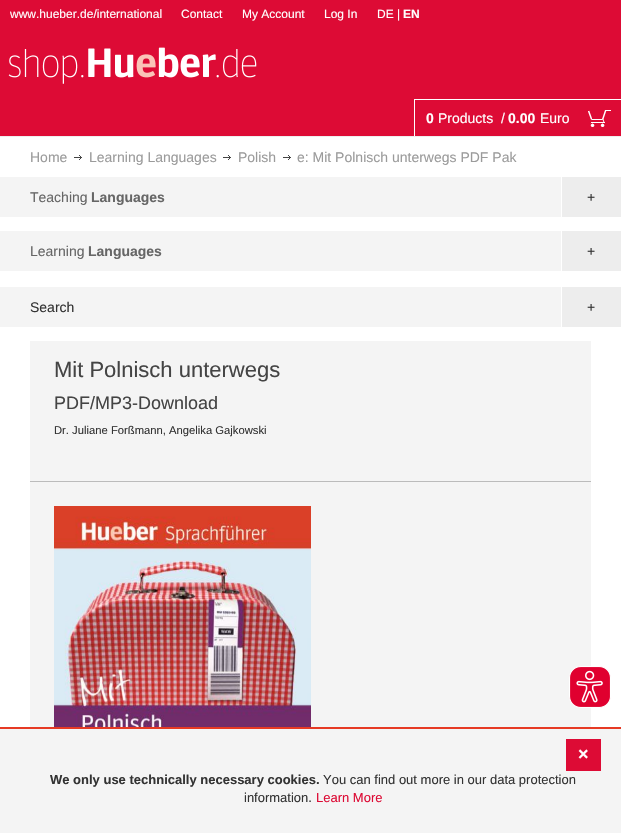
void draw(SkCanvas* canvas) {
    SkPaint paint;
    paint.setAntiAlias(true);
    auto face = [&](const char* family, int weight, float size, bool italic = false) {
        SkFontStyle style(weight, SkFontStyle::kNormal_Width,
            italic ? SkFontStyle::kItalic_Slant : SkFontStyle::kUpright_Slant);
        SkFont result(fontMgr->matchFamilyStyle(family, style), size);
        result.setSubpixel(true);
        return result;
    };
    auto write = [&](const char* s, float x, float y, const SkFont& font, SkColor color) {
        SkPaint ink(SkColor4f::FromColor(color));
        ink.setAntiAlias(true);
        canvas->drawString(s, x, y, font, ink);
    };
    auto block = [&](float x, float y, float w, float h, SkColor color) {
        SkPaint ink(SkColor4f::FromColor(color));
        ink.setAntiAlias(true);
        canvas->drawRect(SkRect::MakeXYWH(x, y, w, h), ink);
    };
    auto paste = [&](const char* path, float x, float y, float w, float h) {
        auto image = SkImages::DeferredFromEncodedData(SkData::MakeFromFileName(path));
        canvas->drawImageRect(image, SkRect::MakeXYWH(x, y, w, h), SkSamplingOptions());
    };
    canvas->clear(SK_ColorWHITE);
    block(0, 0, 621, 136, SkColorSetRGB(221, 11, 53));
    block(0, 136, 621, 1, SkColorSetRGB(238, 238, 238));
    auto kFont1 = face("Liberation Sans", 400, 12);
    write("www.hueber.de/international", 10, 18, kFont1, SK_ColorWHITE);
    write("Contact", 181, 18, kFont1, SK_ColorWHITE);
    write("My Account", 242, 18, kFont1, SK_ColorWHITE);
    write("Log In", 324, 18, kFont1, SK_ColorWHITE);
    write("DE |", 377, 18, kFont1, SK_ColorWHITE);
    auto kFont2 = face("Liberation Sans", 700, 12);
    write("EN", 403, 18, kFont2, SK_ColorWHITE);
    paste("pic1.png", 8, 47, 249, 37);
    block(414, 99, 207, 1, SK_ColorWHITE);
    block(414, 99, 1, 37, SK_ColorWHITE);
    auto kFont3 = face("Liberation Sans", 700, 14);
    write("0", 426, 123, kFont3, SK_ColorWHITE);
    auto kFont4 = face("Liberation Sans", 400, 14);
    write("Products", 438, 123, kFont4, SK_ColorWHITE);
    write("/", 501, 123, kFont4, SK_ColorWHITE);
    write("0.00", 508, 123, kFont3, SK_ColorWHITE);
    write("Euro", 540, 123, kFont4, SK_ColorWHITE);
    paste("pic2.png", 588, 110, 23, 17);
    write("Home", 30, 162, kFont4, SkColorSetRGB(155, 155, 155));
    paste("pic3.png", 74, 155, 8, 5);
    write("Learning Languages", 89, 162, kFont4, SkColorSetRGB(155, 155, 155));
    paste("pic3.png", 223, 155, 8, 5);
    write("Polish", 238, 162, kFont4, SkColorSetRGB(155, 155, 155));
    paste("pic3.png", 283, 155, 8, 5);
    write("e: Mit Polnisch unterwegs PDF Pak", 297, 162, kFont4, SkColorSetRGB(155, 155, 155));
    block(0, 177, 561, 94, SkColorSetRGB(244, 244, 244));
    block(0, 217, 561, 14, SK_ColorWHITE);
    write("Teaching", 30, 202, kFont4, SkColorSetRGB(102, 102, 102));
    write("Languages", 91, 202, kFont3, SkColorSetRGB(102, 102, 102));
    block(562, 177, 59, 40, SkColorSetRGB(237, 237, 237));
    write("+", 587, 202, kFont4, SkColorSetRGB(51, 51, 51));
    write("Learning", 30, 256, kFont4, SkColorSetRGB(102, 102, 102));
    write("Languages", 88, 256, kFont3, SkColorSetRGB(102, 102, 102));
    block(562, 231, 59, 40, SkColorSetRGB(237, 237, 237));
    write("+", 587, 256, kFont4, SkColorSetRGB(51, 51, 51));
    block(0, 287, 561, 40, SkColorSetRGB(244, 244, 244));
    write("Search", 30, 312, kFont4, SkColorSetRGB(51, 51, 51));
    block(562, 287, 59, 40, SkColorSetRGB(237, 237, 237));
    write("+", 587, 312, kFont4, SkColorSetRGB(51, 51, 51));
    block(30, 341, 561, 386, SkColorSetRGB(244, 244, 244));
    auto kFont5 = face("Liberation Sans", 400, 22);
    write("Mit Polnisch unterwegs", 54, 377, kFont5, SkColorSetRGB(68, 68, 68));
    auto kFont6 = face("Liberation Sans", 400, 18);
    write("PDF/MP3-Download", 54, 409, kFont6, SkColorSetRGB(68, 68, 68));
    auto kFont7 = face("Liberation Sans", 400, 11.25f);
    write("Dr. Juliane Forßmann, Angelika Gajkowski", 54, 434, kFont7, SkColorSetRGB(51, 51, 51));
    block(30, 481, 561, 1, SkColorSetRGB(187, 187, 187));
    paste("pic4.png", 54, 506, 257, 221);
    paste("pic5.png", 569, 666, 42, 42);
    block(0, 729, 621, 104, SkColorSetRGB(244, 244, 244));
    block(0, 727, 621, 2, SkColorSetRGB(230, 58, 36));
    block(566, 739, 35, 32, SkColorSetRGB(221, 11, 53));
    auto kFont8 = face("Liberation Sans", 700, 18);
    write("×", 578, 760, kFont8, SK_ColorWHITE);
    auto kFont9 = face("Liberation Sans", 700, 13);
    write("We only use technically necessary cookies.", 50, 784, kFont9, SkColorSetRGB(51, 51, 51));
    auto kFont10 = face("Liberation Sans", 400, 13);
    write("You can find out more in our data protection", 323, 784, kFont10, SkColorSetRGB(51, 51, 51));
    write("information.", 244, 802, kFont10, SkColorSetRGB(51, 51, 51));
    write("Learn More", 316, 802, kFont10, SkColorSetRGB(221, 11, 53));
}
